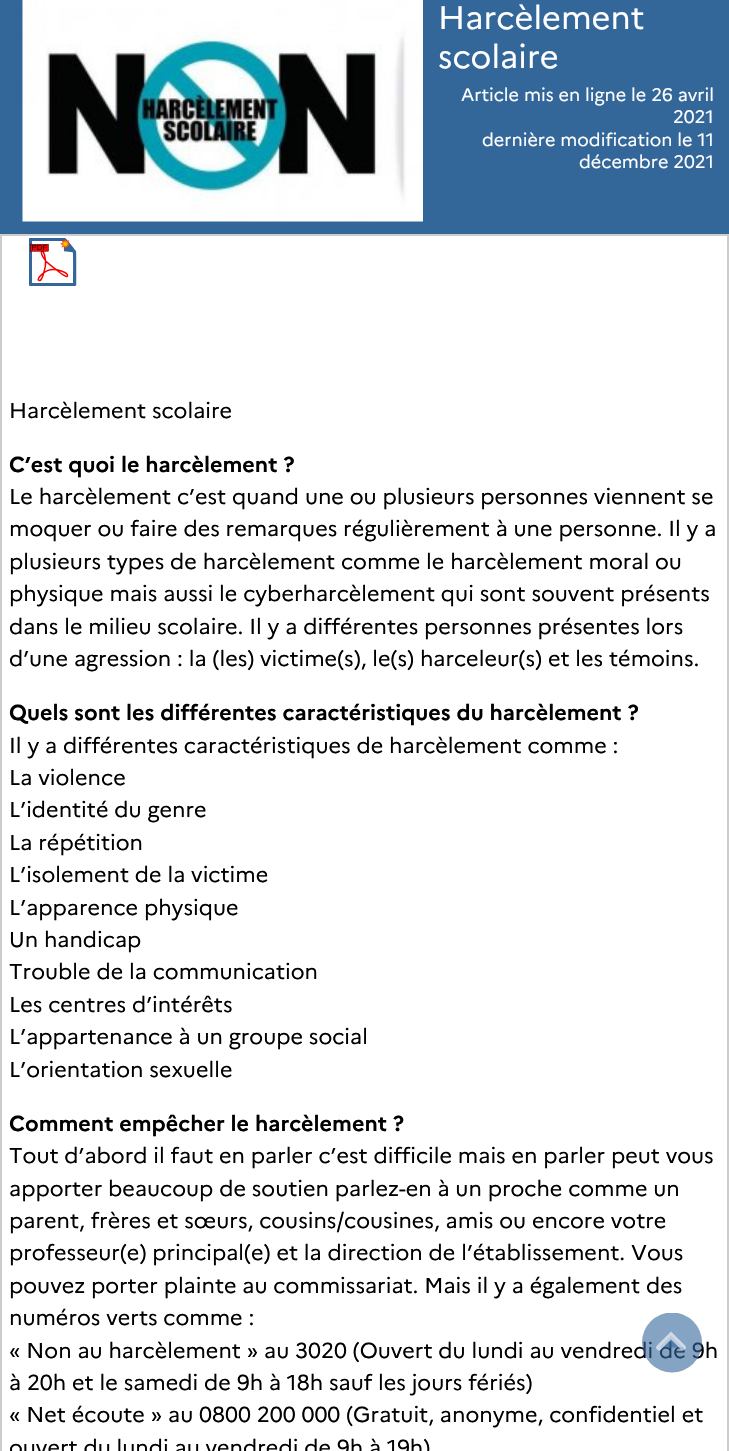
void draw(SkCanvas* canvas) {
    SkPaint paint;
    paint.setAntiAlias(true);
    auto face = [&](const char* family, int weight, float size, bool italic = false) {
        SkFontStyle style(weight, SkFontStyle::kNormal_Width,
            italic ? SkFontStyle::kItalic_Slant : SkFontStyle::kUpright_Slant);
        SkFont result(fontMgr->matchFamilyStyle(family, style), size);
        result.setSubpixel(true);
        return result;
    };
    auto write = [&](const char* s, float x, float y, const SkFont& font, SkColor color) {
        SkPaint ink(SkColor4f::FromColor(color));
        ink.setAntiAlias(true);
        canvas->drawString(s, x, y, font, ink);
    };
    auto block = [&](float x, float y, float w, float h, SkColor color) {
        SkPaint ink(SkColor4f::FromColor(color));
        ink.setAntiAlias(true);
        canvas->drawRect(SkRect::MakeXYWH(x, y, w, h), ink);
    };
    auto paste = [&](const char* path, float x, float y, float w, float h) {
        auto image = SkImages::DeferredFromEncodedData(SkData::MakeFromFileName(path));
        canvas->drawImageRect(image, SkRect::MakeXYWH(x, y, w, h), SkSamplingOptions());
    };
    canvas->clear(SK_ColorWHITE);
    block(0, 0, 729, 234, SkColorSetRGB(51, 102, 153));
    paste("pic1.png", 22, 0, 401, 222);
    auto kFont1 = face("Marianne", 400, 32.5f);
    write("Harcèlement", 438, 29, kFont1, SK_ColorWHITE);
    write("scolaire", 438, 68, kFont1, SK_ColorWHITE);
    auto kFont2 = face("Marianne", 400, 18);
    write("Article mis en ligne le 26 avril", 461, 101, kFont2, SK_ColorWHITE);
    write("2021", 673, 123, kFont2, SK_ColorWHITE);
    write("dernière modification le 11", 482, 146, kFont2, SK_ColorWHITE);
    write("décembre 2021", 579, 168, kFont2, SK_ColorWHITE);
    paint.setStyle(SkPaint::kStroke_Style);
    paint.setStrokeWidth(2);
    paint.setColor(SkColorSetRGB(204, 204, 204));
    canvas->drawRect(SkRect::MakeXYWH(1, 235, 727, 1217), paint);
    paste("pic2.png", 29, 238, 48, 48);
    auto kFont3 = face("Marianne", 400, 21.6f);
    write("Harcèlement scolaire", 9, 418, kFont3, SK_ColorBLACK);
    auto kFont4 = face("Marianne", 700, 21.6f);
    write("C’est quoi le harcèlement ?", 9, 472, kFont4, SK_ColorBLACK);
    write("Le harcèlement c’est quand une ou plusieurs personnes viennent se", 9, 504, kFont3, SK_ColorBLACK);
    write("moquer ou faire des remarques régulièrement à une personne. Il y a", 9, 536, kFont3, SK_ColorBLACK);
    write("plusieurs types de harcèlement comme le harcèlement moral ou", 9, 569, kFont3, SK_ColorBLACK);
    write("physique mais aussi le cyberharcèlement qui sont souvent présents", 9, 601, kFont3, SK_ColorBLACK);
    write("dans le milieu scolaire. Il y a différentes personnes présentes lors", 9, 634, kFont3, SK_ColorBLACK);
    write("d’une agression : la (les) victime(s), le(s) harceleur(s) et les témoins.", 9, 666, kFont3, SK_ColorBLACK);
    write("Quels sont les différentes caractéristiques du harcèlement ?", 9, 720, kFont4, SK_ColorBLACK);
    write("Il y a différentes caractéristiques de harcèlement comme :", 9, 753, kFont3, SK_ColorBLACK);
    write("La violence", 9, 785, kFont3, SK_ColorBLACK);
    write("L’identité du genre", 9, 817, kFont3, SK_ColorBLACK);
    write("La répétition", 9, 850, kFont3, SK_ColorBLACK);
    write("L’isolement de la victime", 9, 882, kFont3, SK_ColorBLACK);
    write("L’apparence physique", 9, 915, kFont3, SK_ColorBLACK);
    write("Un handicap", 9, 947, kFont3, SK_ColorBLACK);
    write("Trouble de la communication", 9, 979, kFont3, SK_ColorBLACK);
    write("Les centres d’intérêts", 9, 1012, kFont3, SK_ColorBLACK);
    write("L’appartenance à un groupe social", 9, 1044, kFont3, SK_ColorBLACK);
    write("L’orientation sexuelle", 9, 1077, kFont3, SK_ColorBLACK);
    write("Comment empêcher le harcèlement ?", 9, 1131, kFont4, SK_ColorBLACK);
    write("Tout d’abord il faut en parler c’est difficile mais en parler peut vous", 9, 1163, kFont3, SK_ColorBLACK);
    write("apporter beaucoup de soutien parlez-en à un proche comme un", 9, 1196, kFont3, SK_ColorBLACK);
    write("parent, frères et sœurs, cousins/cousines, amis ou encore votre", 9, 1228, kFont3, SK_ColorBLACK);
    write("professeur(e) principal(e) et la direction de l’établissement. Vous", 9, 1260, kFont3, SK_ColorBLACK);
    write("pouvez porter plainte au commissariat. Mais il y a également des", 9, 1293, kFont3, SK_ColorBLACK);
    write("numéros verts comme :", 9, 1325, kFont3, SK_ColorBLACK);
    write("« Non au harcèlement » au 3020 (Ouvert du lundi au vendredi de 9h", 9, 1358, kFont3, SK_ColorBLACK);
    write("à 20h et le samedi de 9h à 18h sauf les jours fériés)", 9, 1390, kFont3, SK_ColorBLACK);
    write("« Net écoute » au 0800 200 000 (Gratuit, anonyme, confidentiel et", 9, 1422, kFont3, SK_ColorBLACK);
    write("ouvert du lundi au vendredi de 9h à 19h)", 9, 1455, kFont3, SK_ColorBLACK);
    canvas->save();
    canvas->clipRect(SkRect::MakeXYWH(642, 1313, 60, 60));
    paint.setStyle(SkPaint::kFill_Style);
    paint.setColor(SkColorSetARGB(153, 51, 102, 153));
    canvas->drawCircle(672, 1342.5f, 30, paint);
    canvas->restore();
    canvas->drawPath(SkPathBuilder().moveTo(659, 1347.5f).lineTo(671, 1335.5f).lineTo(683, 1347.5f).detach(), paint);
    paint.setStyle(SkPaint::kStroke_Style);
    paint.setStrokeWidth(5.6f);
    paint.setStrokeCap(SkPaint::kRound_Cap);
    paint.setColor(SkColorSetARGB(153, 255, 255, 255));
    canvas->drawPath(SkPathBuilder().moveTo(659, 1347.5f).lineTo(671, 1335.5f).lineTo(683, 1347.5f).detach(), paint);
}
